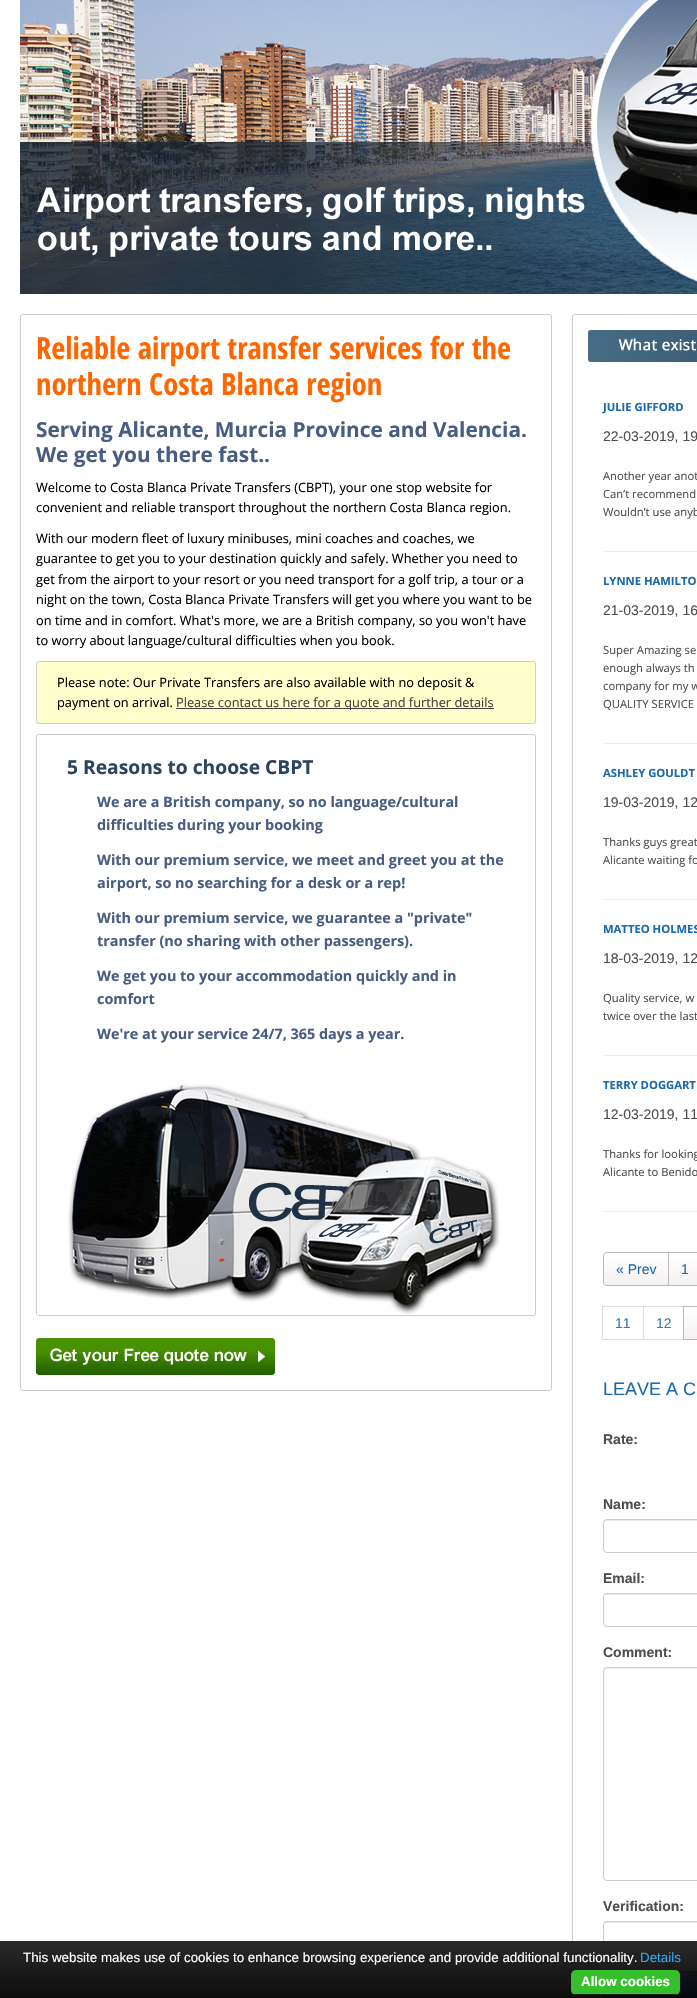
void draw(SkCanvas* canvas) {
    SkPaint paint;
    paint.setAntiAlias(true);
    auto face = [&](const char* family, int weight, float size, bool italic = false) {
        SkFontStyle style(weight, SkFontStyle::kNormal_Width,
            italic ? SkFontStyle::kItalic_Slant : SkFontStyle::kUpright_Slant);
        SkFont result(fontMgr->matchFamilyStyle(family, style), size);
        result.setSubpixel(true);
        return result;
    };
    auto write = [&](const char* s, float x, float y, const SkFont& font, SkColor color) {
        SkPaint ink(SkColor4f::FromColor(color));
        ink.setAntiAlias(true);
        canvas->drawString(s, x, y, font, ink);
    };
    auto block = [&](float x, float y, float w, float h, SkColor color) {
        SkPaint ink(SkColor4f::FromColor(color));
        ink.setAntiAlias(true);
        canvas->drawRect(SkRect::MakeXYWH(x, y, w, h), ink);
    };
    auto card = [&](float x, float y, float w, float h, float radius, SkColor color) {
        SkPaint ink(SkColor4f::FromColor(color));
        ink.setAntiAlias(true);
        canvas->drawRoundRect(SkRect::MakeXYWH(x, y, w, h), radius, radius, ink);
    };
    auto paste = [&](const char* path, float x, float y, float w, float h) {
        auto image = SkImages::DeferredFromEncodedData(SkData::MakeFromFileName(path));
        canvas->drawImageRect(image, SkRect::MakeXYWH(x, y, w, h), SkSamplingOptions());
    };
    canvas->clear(SK_ColorWHITE);
    paste("pic1.png", 20, 0, 677, 294);
    paint.setStyle(SkPaint::kStroke_Style);
    paint.setStrokeWidth(1);
    paint.setColor(SkColorSetRGB(204, 204, 204));
    canvas->drawRoundRect(SkRect::MakeXYWH(20.5f, 314.5f, 531, 1076), 2.5f, 2.5f, paint);
    auto kFont1 = face("Open Sans Condensed", 700, 30.4f);
    write("Reliable airport transfer services for the", 36, 359, kFont1, SkColorSetRGB(255, 102, 0));
    write("northern Costa Blanca region", 36, 395, kFont1, SkColorSetRGB(255, 102, 0));
    auto kFont2 = face("Open Sans", 700, 20.8f);
    write("Serving Alicante, Murcia Province and Valencia.", 36, 437, kFont2, SkColorSetRGB(71, 93, 129));
    write("We get you there fast..", 36, 462, kFont2, SkColorSetRGB(71, 93, 129));
    auto kFont3 = face("Open Sans", 400, 12.8f);
    write("Welcome to Costa Blanca Private Transfers (CBPT), your one stop website for", 36, 492, kFont3, SK_ColorBLACK);
    write("convenient and reliable transport throughout the northern Costa Blanca region.", 36, 512, kFont3, SK_ColorBLACK);
    write("With our modern fleet of luxury minibuses, mini coaches and coaches, we", 36, 543, kFont3, SK_ColorBLACK);
    write("guarantee to get you to your destination quickly and safely. Whether you need to", 36, 563, kFont3, SK_ColorBLACK);
    write("get from the airport to your resort or you need transport for a golf trip, a tour or a", 36, 584, kFont3, SK_ColorBLACK);
    write("night on the town, Costa Blanca Private Transfers will get you where you want to be", 36, 604, kFont3, SK_ColorBLACK);
    write("on time and in comfort. What's more, we are a British company, so you won't have", 36, 625, kFont3, SK_ColorBLACK);
    write("to worry about language/cultural difficulties when you book.", 36, 645, kFont3, SK_ColorBLACK);
    paint.setStyle(SkPaint::kFill_Style);
    paint.setColor(SkColorSetRGB(255, 255, 204));
    canvas->drawRoundRect(SkRect::MakeXYWH(36.5f, 661.5f, 499, 62), 2.5f, 2.5f, paint);
    paint.setStyle(SkPaint::kStroke_Style);
    paint.setColor(SkColorSetRGB(204, 204, 204));
    canvas->drawRoundRect(SkRect::MakeXYWH(36.5f, 661.5f, 499, 62), 2.5f, 2.5f, paint);
    write("Please note: Our Private Transfers are also available with no deposit &", 57, 687, kFont3, SK_ColorBLACK);
    write("payment on arrival.", 57, 707, kFont3, SK_ColorBLACK);
    block(176, 708, 318, 1, SkColorSetRGB(66, 65, 60));
    write("Please contact us here for a quote and further details", 176, 707, kFont3, SkColorSetRGB(66, 65, 60));
    canvas->drawRoundRect(SkRect::MakeXYWH(36.5f, 734.5f, 499, 581), 2.5f, 2.5f, paint);
    auto kFont4 = face("Open Sans", 700, 19.25f);
    write("5 Reasons to choose CBPT", 67, 774, kFont4, SkColorSetRGB(43, 68, 96));
    paste("pic2.png", 37, 1084, 463, 231);
    auto kFont5 = face("Open Sans", 700, 14.4f);
    write("We are a British company, so no language/cultural", 97, 807, kFont5, SkColorSetRGB(71, 93, 129));
    write("difficulties during your booking", 97, 830, kFont5, SkColorSetRGB(71, 93, 129));
    write("With our premium service, we meet and greet you at the", 97, 865, kFont5, SkColorSetRGB(71, 93, 129));
    write("airport, so no searching for a desk or a rep!", 97, 888, kFont5, SkColorSetRGB(71, 93, 129));
    write("With our premium service, we guarantee a \"private\"", 97, 923, kFont5, SkColorSetRGB(71, 93, 129));
    write("transfer (no sharing with other passengers).", 97, 946, kFont5, SkColorSetRGB(71, 93, 129));
    write("We get you to your accommodation quickly and in", 97, 981, kFont5, SkColorSetRGB(71, 93, 129));
    write("comfort", 97, 1004, kFont5, SkColorSetRGB(71, 93, 129));
    write("We're at your service 24/7, 365 days a year.", 97, 1039, kFont5, SkColorSetRGB(71, 93, 129));
    paste("pic3.png", 36, 1338, 239, 37);
    canvas->drawRoundRect(SkRect::MakeXYWH(572.5f, 314.5f, 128, 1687), 2.5f, 2.5f, paint);
    paste("pic4.png", 588, 330, 109, 32);
    auto kFont6 = face("Open Sans", 700, 11.25f);
    write("JULIE GIFFORD", 603, 411, kFont6, SkColorSetRGB(27, 106, 172));
    auto kFont7 = face("Liberation Sans", 400, 14);
    write("22-03-2019, 19", 603, 441, kFont7, SkColorSetRGB(78, 78, 78));
    auto kFont8 = face("Open Sans", 400, 11.25f);
    write("Another year anot", 603, 480, kFont8, SkColorSetRGB(78, 78, 78));
    write("Can’t recommend", 603, 498, kFont8, SkColorSetRGB(78, 78, 78));
    write("Wouldn’t use anyb", 603, 516, kFont8, SkColorSetRGB(78, 78, 78));
    block(603, 551, 94, 1, SkColorSetRGB(238, 238, 238));
    write("LYNNE HAMILTO", 603, 585, kFont6, SkColorSetRGB(27, 106, 172));
    write("21-03-2019, 16", 603, 615, kFont7, SkColorSetRGB(78, 78, 78));
    write("Super Amazing se", 603, 654, kFont8, SkColorSetRGB(78, 78, 78));
    write("enough always th", 603, 672, kFont8, SkColorSetRGB(78, 78, 78));
    write("company for my w", 603, 690, kFont8, SkColorSetRGB(78, 78, 78));
    write("QUALITY SERVICE", 603, 708, kFont8, SkColorSetRGB(78, 78, 78));
    block(603, 743, 94, 1, SkColorSetRGB(238, 238, 238));
    write("ASHLEY GOULDT", 603, 777, kFont6, SkColorSetRGB(27, 106, 172));
    write("19-03-2019, 12", 603, 807, kFont7, SkColorSetRGB(78, 78, 78));
    write("Thanks guys great", 603, 846, kFont8, SkColorSetRGB(78, 78, 78));
    write("Alicante waiting fo", 603, 864, kFont8, SkColorSetRGB(78, 78, 78));
    block(603, 899, 94, 1, SkColorSetRGB(238, 238, 238));
    write("MATTEO HOLMES", 603, 933, kFont6, SkColorSetRGB(27, 106, 172));
    write("18-03-2019, 12", 603, 963, kFont7, SkColorSetRGB(78, 78, 78));
    write("Quality service, w", 603, 1002, kFont8, SkColorSetRGB(78, 78, 78));
    write("twice over the last", 603, 1020, kFont8, SkColorSetRGB(78, 78, 78));
    block(603, 1055, 94, 1, SkColorSetRGB(238, 238, 238));
    write("TERRY DOGGART", 603, 1089, kFont6, SkColorSetRGB(27, 106, 172));
    write("12-03-2019, 11", 603, 1119, kFont7, SkColorSetRGB(78, 78, 78));
    write("Thanks for looking", 603, 1158, kFont8, SkColorSetRGB(78, 78, 78));
    write("Alicante to Benido", 603, 1176, kFont8, SkColorSetRGB(78, 78, 78));
    block(603, 1211, 94, 1, SkColorSetRGB(238, 238, 238));
    canvas->save();
    canvas->clipPath(SkPathBuilder().moveTo(607, 1252).lineTo(669, 1252).lineTo(669, 1286).lineTo(607, 1286).cubicTo(605, 1286, 603, 1284, 603, 1282).lineTo(603, 1256).cubicTo(603, 1254, 605, 1252, 607, 1252).close().detach(), true);
    paint.setStyle(SkPaint::kFill_Style);
    {
        const SkColor colors[] = {SK_ColorWHITE, SkColorSetRGB(249, 247, 248), SkColorSetRGB(246, 245, 243), SkColorSetRGB(248, 244, 243), SkColorSetRGB(245, 241, 240)};
        const float stops[] = {0, 0.6f, 0.7f, 0.8f, 1};
        const SkPoint ends[] = {{636, 1253}, {636, 1285}};
        paint.setShader(SkGradientShader::MakeLinear(ends, colors, stops, 5, SkTileMode::kClamp));
        paint.setAlpha(255);
    }
    canvas->drawRect(SkRect::MakeXYWH(603, 1253, 65, 32), paint);
    canvas->restore();
    paint.setStyle(SkPaint::kStroke_Style);
    paint.setShader(nullptr);
    paint.setColor(SkColorSetRGB(190, 186, 187));
    canvas->drawPath(SkPathBuilder().moveTo(607, 1252.5f).lineTo(668.5f, 1252.5f).lineTo(668.5f, 1285.5f).lineTo(607, 1285.5f).cubicTo(605, 1285.5f, 603.5f, 1284, 603.5f, 1282).lineTo(603.5f, 1256).cubicTo(603.5f, 1254, 605, 1252.5f, 607, 1252.5f).close().detach(), paint);
    write("« Prev", 616, 1274, kFont7, SkColorSetRGB(27, 106, 172));
    paint.setStyle(SkPaint::kFill_Style);
    {
        const SkColor colors[] = {SK_ColorWHITE, SkColorSetRGB(249, 247, 248), SkColorSetRGB(246, 245, 243), SkColorSetRGB(248, 244, 243), SkColorSetRGB(245, 241, 240)};
        const float stops[] = {0, 0.6f, 0.7f, 0.8f, 1};
        const SkPoint ends[] = {{685, 1253}, {685, 1285}};
        paint.setShader(SkGradientShader::MakeLinear(ends, colors, stops, 5, SkTileMode::kClamp));
        paint.setAlpha(255);
    }
    canvas->drawRect(SkRect::MakeXYWH(669, 1259, 28, 26), paint);
    paint.setStyle(SkPaint::kStroke_Style);
    paint.setShader(nullptr);
    paint.setColor(SkColorSetRGB(190, 186, 187));
    canvas->drawRect(SkRect::MakeXYWH(668.5f, 1252.5f, 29, 33), paint);
    write("1", 681, 1274, kFont7, SkColorSetRGB(27, 106, 172));
    paint.setColor(SkColorSetRGB(221, 221, 221));
    canvas->drawRect(SkRect::MakeXYWH(602.5f, 1306.5f, 41, 33), paint);
    write("11", 615, 1328, kFont7, SkColorSetRGB(51, 122, 183));
    canvas->drawRect(SkRect::MakeXYWH(643.5f, 1306.5f, 40, 33), paint);
    write("12", 656, 1328, kFont7, SkColorSetRGB(51, 122, 183));
    paint.setStyle(SkPaint::kFill_Style);
    {
        const SkColor colors[] = {SK_ColorWHITE, SkColorSetRGB(249, 247, 248), SkColorSetRGB(246, 245, 243), SkColorSetRGB(248, 244, 243), SkColorSetRGB(245, 241, 240)};
        const float stops[] = {0, 0.6f, 0.7f, 0.8f, 1};
        const SkPoint ends[] = {{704, 1307}, {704, 1339}};
        paint.setShader(SkGradientShader::MakeLinear(ends, colors, stops, 5, SkTileMode::kClamp));
        paint.setAlpha(255);
    }
    canvas->drawRect(SkRect::MakeXYWH(684, 1313, 13, 26), paint);
    paint.setStyle(SkPaint::kStroke_Style);
    paint.setShader(nullptr);
    paint.setColor(SkColorSetRGB(190, 186, 187));
    canvas->drawRect(SkRect::MakeXYWH(683.5f, 1306.5f, 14, 33), paint);
    auto kFont9 = face("Liberation Sans", 400, 18);
    write("LEAVE A C", 603, 1395, kFont9, SkColorSetRGB(27, 106, 172));
    auto kFont10 = face("Liberation Sans", 700, 14);
    write("Rate:", 603, 1444, kFont10, SkColorSetRGB(78, 78, 78));
    write("Name:", 603, 1509, kFont10, SkColorSetRGB(78, 78, 78));
    paint.setStyle(SkPaint::kFill_Style);
    paint.setColor(SkColorSetRGB(236, 236, 236));
    canvas->drawPath(SkPathBuilder().moveTo(607, 1521).lineTo(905, 1521).cubicTo(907, 1521, 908, 1522, 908, 1524).lineTo(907, 1521).lineTo(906, 1520).lineTo(607, 1520).cubicTo(605, 1520, 604, 1522, 604, 1524).cubicTo(604, 1522, 605, 1521, 607, 1521).close().detach(), paint);
    paint.setStyle(SkPaint::kStroke_Style);
    paint.setColor(SkColorSetRGB(204, 204, 204));
    canvas->drawRoundRect(SkRect::MakeXYWH(603.5f, 1519.5f, 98, 33), 3.5f, 3.5f, paint);
    write("Email:", 603, 1583, kFont10, SkColorSetRGB(78, 78, 78));
    paint.setStyle(SkPaint::kFill_Style);
    paint.setColor(SkColorSetRGB(236, 236, 236));
    canvas->drawPath(SkPathBuilder().moveTo(607, 1595).lineTo(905, 1595).cubicTo(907, 1595, 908, 1596, 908, 1598).lineTo(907, 1595).lineTo(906, 1594).lineTo(607, 1594).cubicTo(605, 1594, 604, 1596, 604, 1598).cubicTo(604, 1596, 605, 1595, 607, 1595).close().detach(), paint);
    paint.setStyle(SkPaint::kStroke_Style);
    paint.setColor(SkColorSetRGB(204, 204, 204));
    canvas->drawRoundRect(SkRect::MakeXYWH(603.5f, 1593.5f, 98, 33), 3.5f, 3.5f, paint);
    write("Comment:", 603, 1657, kFont10, SkColorSetRGB(78, 78, 78));
    paint.setStyle(SkPaint::kFill_Style);
    paint.setColor(SkColorSetRGB(236, 236, 236));
    canvas->drawPath(SkPathBuilder().moveTo(607, 1669).lineTo(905, 1669).cubicTo(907, 1669, 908, 1670, 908, 1672).lineTo(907, 1669).lineTo(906, 1668).lineTo(607, 1668).cubicTo(605, 1668, 604, 1670, 604, 1672).cubicTo(604, 1670, 605, 1669, 607, 1669).close().detach(), paint);
    paint.setStyle(SkPaint::kStroke_Style);
    paint.setColor(SkColorSetRGB(204, 204, 204));
    canvas->drawRoundRect(SkRect::MakeXYWH(603.5f, 1667.5f, 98, 213), 3.5f, 3.5f, paint);
    write("Verification:", 603, 1911, kFont10, SkColorSetRGB(78, 78, 78));
    paint.setStyle(SkPaint::kFill_Style);
    paint.setColor(SkColorSetRGB(236, 236, 236));
    canvas->drawPath(SkPathBuilder().moveTo(607, 1923).lineTo(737, 1923).cubicTo(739, 1923, 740, 1924, 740, 1926).cubicTo(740, 1924, 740, 1922, 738, 1922).lineTo(606, 1922).cubicTo(604, 1922, 604, 1924, 604, 1926).cubicTo(604, 1924, 605, 1923, 607, 1923).close().detach(), paint);
    paint.setStyle(SkPaint::kStroke_Style);
    paint.setColor(SkColorSetRGB(204, 204, 204));
    canvas->drawRoundRect(SkRect::MakeXYWH(603.5f, 1921.5f, 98, 33), 3.5f, 3.5f, paint);
    paint.setStyle(SkPaint::kFill_Style);
    {
        const SkColor colors[] = {SkColorSetRGB(64, 152, 226), SkColorSetRGB(53, 140, 217), SkColorSetRGB(52, 140, 212), SkColorSetRGB(50, 137, 214), SkColorSetRGB(47, 135, 209), SkColorSetRGB(44, 134, 210)};
        const float stops[] = {0, 0.6f, 0.67f, 0.77f, 0.97f, 1};
        const SkPoint ends[] = {{676, 1972}, {676, 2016}};
        paint.setShader(SkGradientShader::MakeLinear(ends, colors, stops, 6, SkTileMode::kClamp));
        paint.setAlpha(255);
    }
    canvas->drawRect(SkRect::MakeXYWH(604, 1972, 93, 26), paint);
    paint.setStyle(SkPaint::kStroke_Style);
    paint.setShader(nullptr);
    paint.setColor(SkColorSetRGB(27, 106, 172));
    canvas->drawRect(SkRect::MakeXYWH(603.5f, 1971.5f, 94, 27), paint);
    paint.setStyle(SkPaint::kFill_Style);
    {
        const SkColor colors[] = {SkColorSetARGB(242, 30, 30, 30), SkColorSetARGB(242, 0, 0, 0)};
        const float stops[] = {0, 1};
        const SkPoint ends[] = {{352, 1941}, {352, 1998}};
        paint.setShader(SkGradientShader::MakeLinear(ends, colors, stops, 2, SkTileMode::kClamp));
        paint.setAlpha(255);
    }
    canvas->drawRect(SkRect::MakeXYWH(0, 1941, 697, 57), paint);
    auto kFont11 = face("Liberation Sans", 400, 13.35f);
    write("This website makes use of cookies to enhance browsing experience and provide additional functionality.", 23, 1962, kFont11, SK_ColorWHITE);
    write("Details", 640, 1962, kFont11, SkColorSetRGB(49, 168, 240));
    card(571, 1970, 109, 25, 5, SkColorSetRGB(54, 191, 45));
    block(574, 1994, 104, 1, SkColorSetRGB(34, 34, 34));
    auto kFont12 = face("Liberation Sans", 700, 13.35f);
    write("Allow cookies", 581, 1986, kFont12, SK_ColorWHITE);
}
